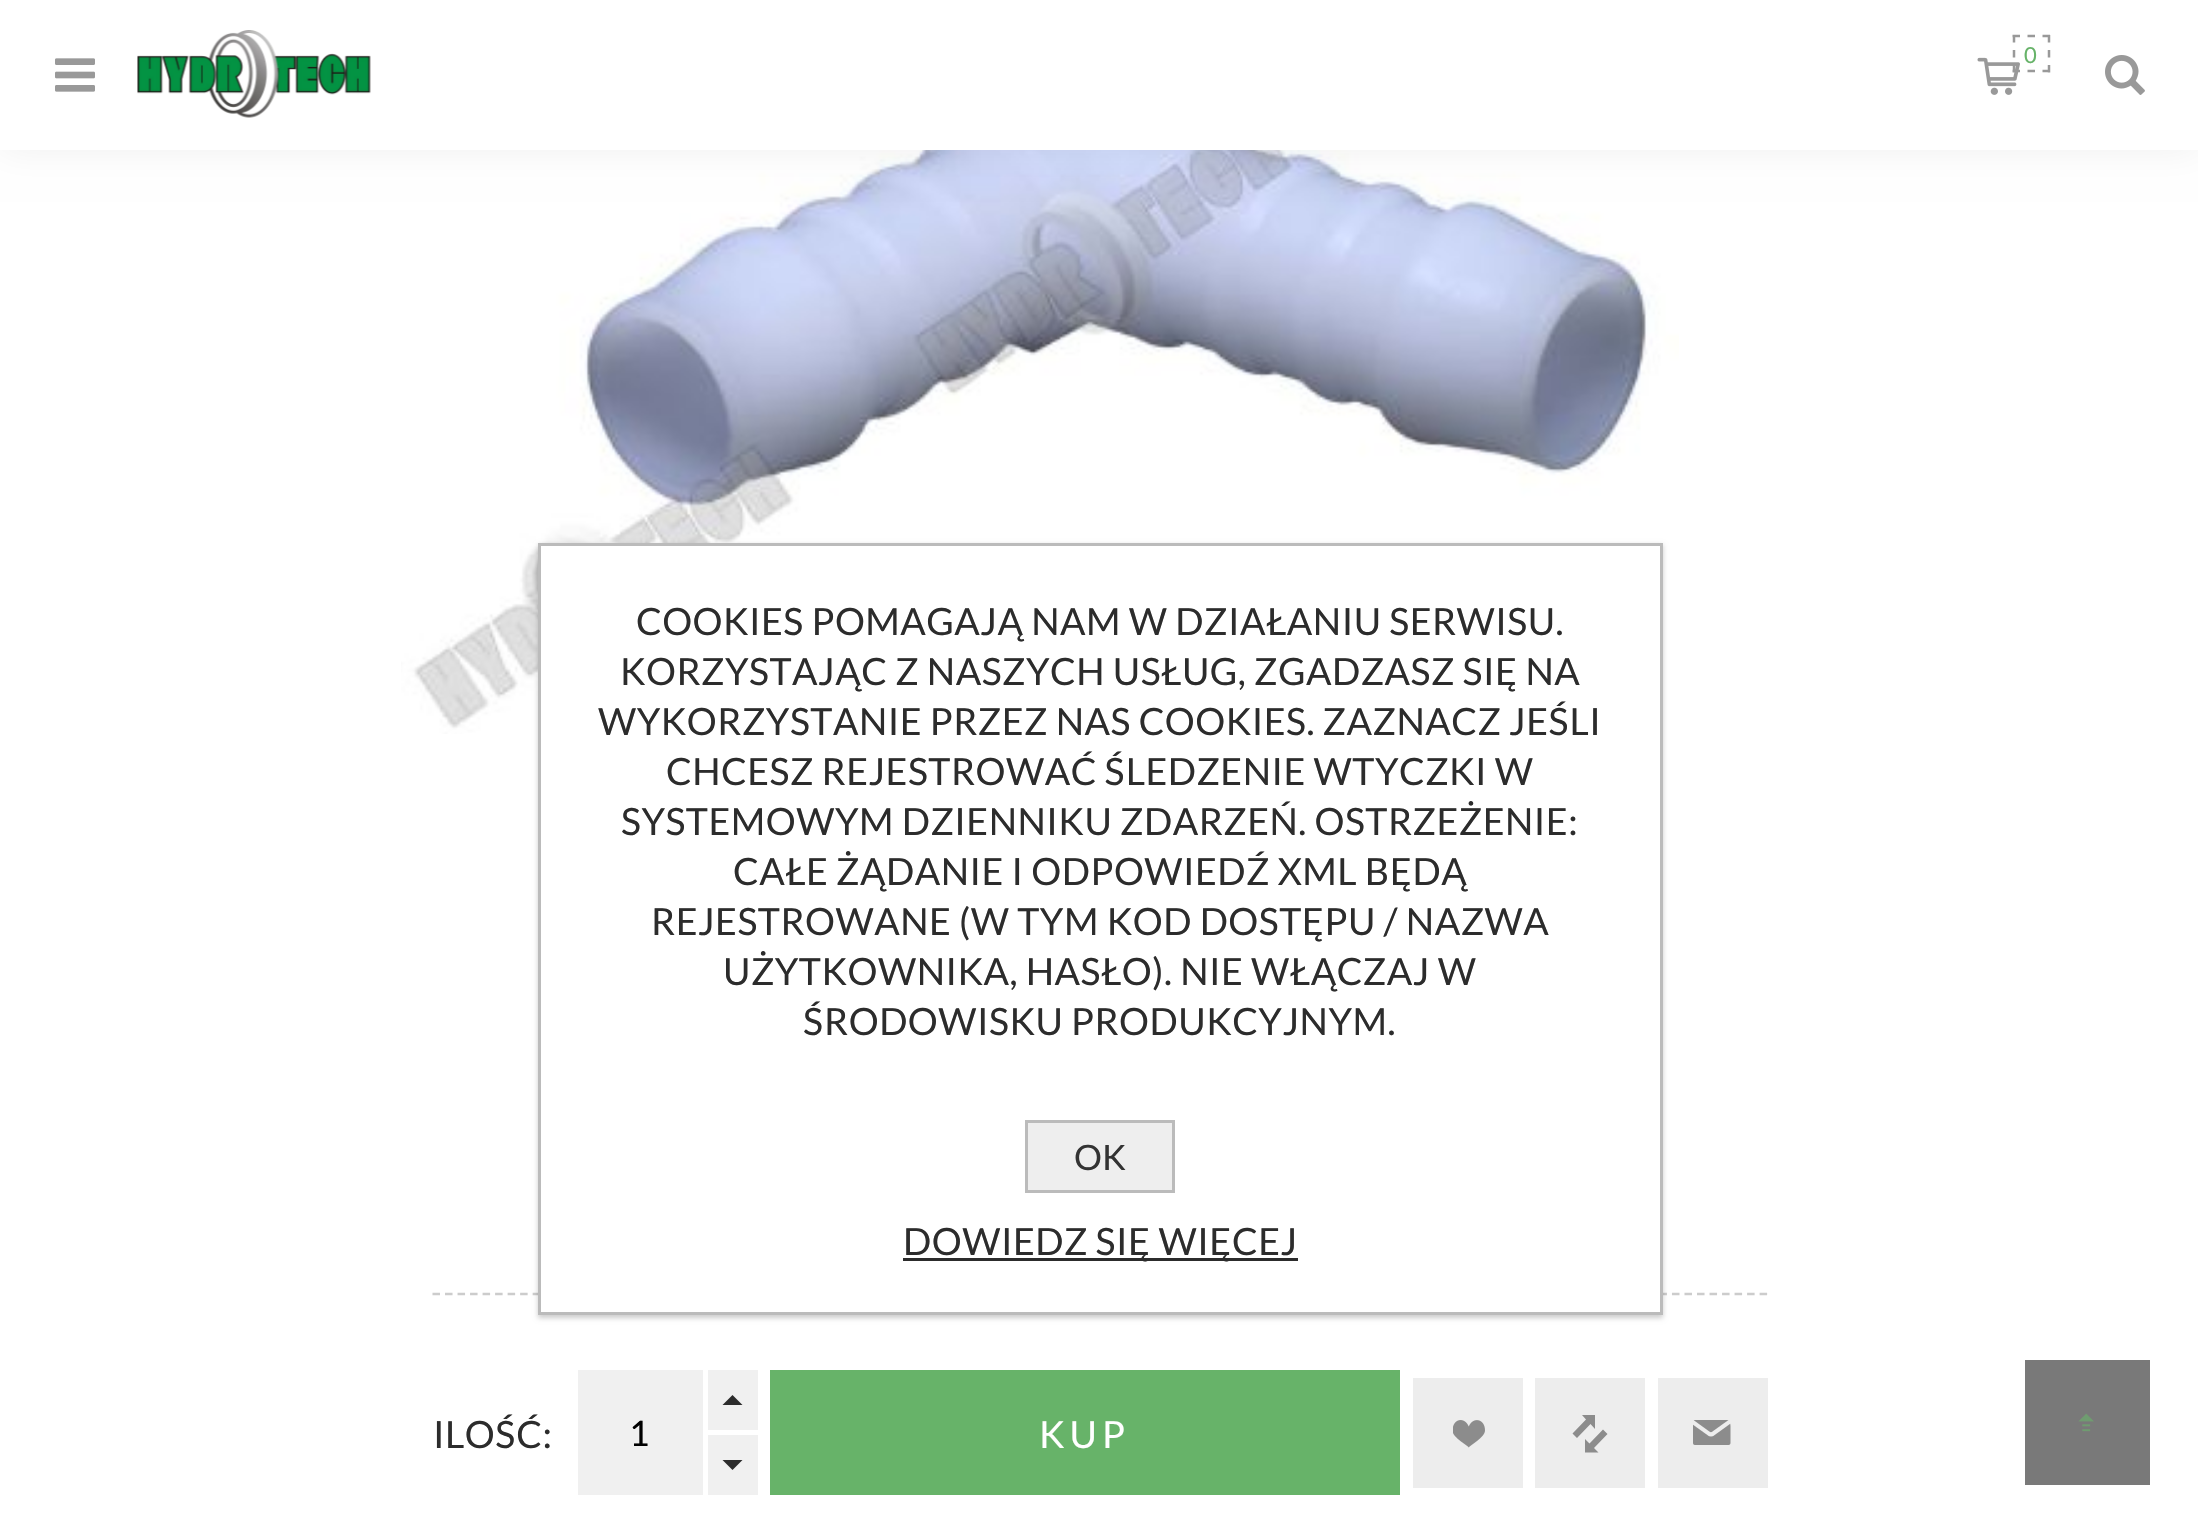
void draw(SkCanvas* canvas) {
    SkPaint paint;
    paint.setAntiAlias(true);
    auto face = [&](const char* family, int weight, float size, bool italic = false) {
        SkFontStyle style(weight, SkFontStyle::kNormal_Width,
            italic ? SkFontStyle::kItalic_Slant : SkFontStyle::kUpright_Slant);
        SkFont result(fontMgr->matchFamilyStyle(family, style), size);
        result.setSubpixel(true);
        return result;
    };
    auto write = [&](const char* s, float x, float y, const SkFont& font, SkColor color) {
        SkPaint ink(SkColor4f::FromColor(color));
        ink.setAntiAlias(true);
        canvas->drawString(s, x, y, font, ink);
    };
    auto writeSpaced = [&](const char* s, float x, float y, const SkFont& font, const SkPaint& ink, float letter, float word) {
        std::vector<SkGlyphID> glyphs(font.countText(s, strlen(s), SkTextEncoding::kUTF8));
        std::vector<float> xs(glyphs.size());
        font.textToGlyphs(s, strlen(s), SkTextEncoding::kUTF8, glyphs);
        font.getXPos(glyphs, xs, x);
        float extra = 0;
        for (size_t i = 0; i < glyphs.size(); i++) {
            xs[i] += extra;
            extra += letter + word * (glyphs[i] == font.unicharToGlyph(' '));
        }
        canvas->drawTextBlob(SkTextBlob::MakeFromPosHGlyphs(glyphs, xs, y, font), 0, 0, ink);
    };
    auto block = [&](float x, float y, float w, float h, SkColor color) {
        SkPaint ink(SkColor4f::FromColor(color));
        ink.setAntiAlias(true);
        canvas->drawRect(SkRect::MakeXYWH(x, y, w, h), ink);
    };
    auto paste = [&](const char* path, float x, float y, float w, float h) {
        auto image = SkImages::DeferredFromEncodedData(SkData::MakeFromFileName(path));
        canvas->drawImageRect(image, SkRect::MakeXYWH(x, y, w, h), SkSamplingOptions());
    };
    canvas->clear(SK_ColorWHITE);
    paste("pic5.png", 401, 150, 1278, 584);
    paint.setColor(SkColorSetARGB(15, 0, 0, 0));
    paint.setMaskFilter(SkMaskFilter::MakeBlur(kNormal_SkBlurStyle, 17.5f));
    canvas->drawRect(SkRect::MakeXYWH(0, 0, 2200, 150), paint);
    paint.setMaskFilter(nullptr);
    block(0, 0, 2198, 150, SK_ColorWHITE);
    paste("pic1.png", 55, 58, 40, 34);
    paste("pic2.png", 137, 30, 234, 88);
    paste("pic3.png", 1977, 57, 43, 38);
    paint.setStyle(SkPaint::kStroke_Style);
    paint.setStrokeWidth(2.5f);
    paint.setColor(SkColorSetRGB(153, 153, 153));
    canvas->drawPath(SkPathBuilder().moveTo(2012.5f, 36).lineTo(2020, 36).moveTo(2027.5f, 36).lineTo(2035, 36).moveTo(2042.5f, 36).lineTo(2050, 36).moveTo(2049, 35).lineTo(2049, 42.5f).moveTo(2049, 50).lineTo(2049, 57.5f).moveTo(2049, 65).lineTo(2049, 72.5f).moveTo(2012.5f, 71).lineTo(2020, 71).moveTo(2027.5f, 71).lineTo(2035, 71).moveTo(2042.5f, 71).lineTo(2050, 71).moveTo(2014, 35).lineTo(2014, 42.5f).moveTo(2014, 50).lineTo(2014, 57.5f).moveTo(2014, 65).lineTo(2014, 72.5f).detach(), paint);
    auto kFont1 = face("Lato", 400, 22);
    paint.setStyle(SkPaint::kFill_Style);
    paint.setColor(SkColorSetRGB(103, 179, 105));
    writeSpaced("0", 2024, 63, kFont1, paint, 0.5f, 0);
    paste("pic4.png", 2105, 55, 40, 40);
    paint.setStyle(SkPaint::kStroke_Style);
    paint.setColor(SkColorSetRGB(204, 204, 204));
    paint.setPathEffect(SkDashPathEffect::Make({{7.5f, 5.02f}}, 0));
    canvas->drawPath(SkPathBuilder().moveTo(432.5f, 1294).lineTo(1767.5f, 1294).detach(), paint);
    paint.setPathEffect(nullptr);
    auto kFont2 = face("Lato", 400, 37.5f);
    paint.setStyle(SkPaint::kFill_Style);
    paint.setColor(SkColorSetRGB(44, 44, 44));
    writeSpaced("ILOŚĆ:", 433, 1448, kFont2, paint, 0.5f, 0);
    block(708, 1370, 50, 60, SkColorSetRGB(240, 240, 240));
    canvas->drawPath(SkPathBuilder().moveTo(742.5f, 1405).lineTo(722.5f, 1405).lineTo(732.5f, 1395).close().detach(), paint);
    block(578, 1370, 125, 125, SkColorSetRGB(240, 240, 240));
    auto kFont3 = face("Lato", 400, 35);
    write("1", 629, 1446, kFont3, SK_ColorBLACK);
    block(708, 1435, 50, 60, SkColorSetRGB(240, 240, 240));
    canvas->drawPath(SkPathBuilder().moveTo(722.5f, 1460).lineTo(742.5f, 1460).lineTo(732.5f, 1470).close().detach(), paint);
    block(770, 1370, 630, 125, SkColorSetRGB(103, 179, 105));
    paint.setColor(SK_ColorWHITE);
    writeSpaced("KUP", 1039, 1448, kFont2, paint, 5, 0);
    block(1413, 1378, 110, 110, SkColorSetRGB(237, 237, 237));
    paste("pic6.png", 1453, 1420, 32, 28);
    block(1535, 1378, 110, 110, SkColorSetRGB(237, 237, 237));
    paint.setColor(SkColorSetRGB(140, 140, 140));
    canvas->drawPath(SkPathBuilder().moveTo(1595, 1429).lineTo(1595, 1415).lineTo(1582, 1415).lineTo(1586, 1419.5f).lineTo(1572.5f, 1433.5f).lineTo(1577, 1438).lineTo(1590.5f, 1424).close().moveTo(1607.5f, 1434).lineTo(1603, 1429.5f).lineTo(1589.5f, 1443.5f).lineTo(1585, 1439).lineTo(1585, 1452.5f).lineTo(1598.5f, 1452.5f).lineTo(1594, 1448).close().detach(), paint);
    block(1658, 1378, 110, 110, SkColorSetRGB(237, 237, 237));
    paste("pic7.png", 1693, 1420, 38, 25);
    paint.setColor(SkColorSetARGB(51, 0, 0, 0));
    paint.setMaskFilter(SkMaskFilter::MakeBlur(kNormal_SkBlurStyle, 2.5f));
    canvas->drawRect(SkRect::MakeXYWH(538, 545, 1125, 773), paint);
    paint.setMaskFilter(nullptr);
    paint.setColor(SK_ColorWHITE);
    canvas->drawRect(SkRect::MakeXYWH(539.5f, 544.5f, 1122, 769), paint);
    paint.setStyle(SkPaint::kStroke_Style);
    paint.setStrokeWidth(3);
    paint.setColor(SkColorSetRGB(187, 187, 187));
    canvas->drawRect(SkRect::MakeXYWH(539.5f, 544.5f, 1122, 769), paint);
    paint.setStyle(SkPaint::kFill_Style);
    paint.setColor(SkColorSetRGB(44, 44, 44));
    writeSpaced("COOKIES POMAGAJĄ NAM W DZIAŁANIU SERWISU.", 636, 635, kFont2, paint, 0.5f, 0);
    writeSpaced("KORZYSTAJĄC Z NASZYCH USŁUG, ZGADZASZ SIĘ NA", 620, 685, kFont2, paint, 0.5f, 0);
    writeSpaced("WYKORZYSTANIE PRZEZ NAS COOKIES. ZAZNACZ JEŚLI", 598, 735, kFont2, paint, 0.5f, 0);
    writeSpaced("CHCESZ REJESTROWAĆ ŚLEDZENIE WTYCZKI W", 666, 785, kFont2, paint, 0.5f, 0);
    writeSpaced("SYSTEMOWYM DZIENNIKU ZDARZEŃ. OSTRZEŻENIE:", 621, 835, kFont2, paint, 0.5f, 0);
    writeSpaced("CAŁE ŻĄDANIE I ODPOWIEDŹ XML BĘDĄ", 733, 885, kFont2, paint, 0.5f, 0);
    writeSpaced("REJESTROWANE (W TYM KOD DOSTĘPU / NAZWA", 651, 935, kFont2, paint, 0.5f, 0);
    writeSpaced("UŻYTKOWNIKA, HASŁO). NIE WŁĄCZAJ W", 723, 985, kFont2, paint, 0.5f, 0);
    writeSpaced("ŚRODOWISKU PRODUKCYJNYM.", 803, 1035, kFont2, paint, 0.5f, 0);
    paint.setColor(SkColorSetRGB(238, 238, 238));
    canvas->drawRect(SkRect::MakeXYWH(1026.5f, 1121.5f, 147, 70), paint);
    paint.setStyle(SkPaint::kStroke_Style);
    paint.setColor(SkColorSetRGB(187, 187, 187));
    canvas->drawRect(SkRect::MakeXYWH(1026.5f, 1121.5f, 147, 70), paint);
    write("OK", 1074, 1170, kFont3, SkColorSetRGB(51, 51, 51));
    block(903, 1258, 395, 3, SkColorSetRGB(44, 44, 44));
    paint.setStyle(SkPaint::kFill_Style);
    paint.setColor(SkColorSetRGB(44, 44, 44));
    writeSpaced("DOWIEDZ SIĘ WIĘCEJ", 903, 1255, kFont2, paint, 0.5f, 0);
    block(2025, 1360, 125, 125, SkColorSetRGB(121, 121, 121));
    paste("pic8.png", 2078, 1413, 16, 19);
}
